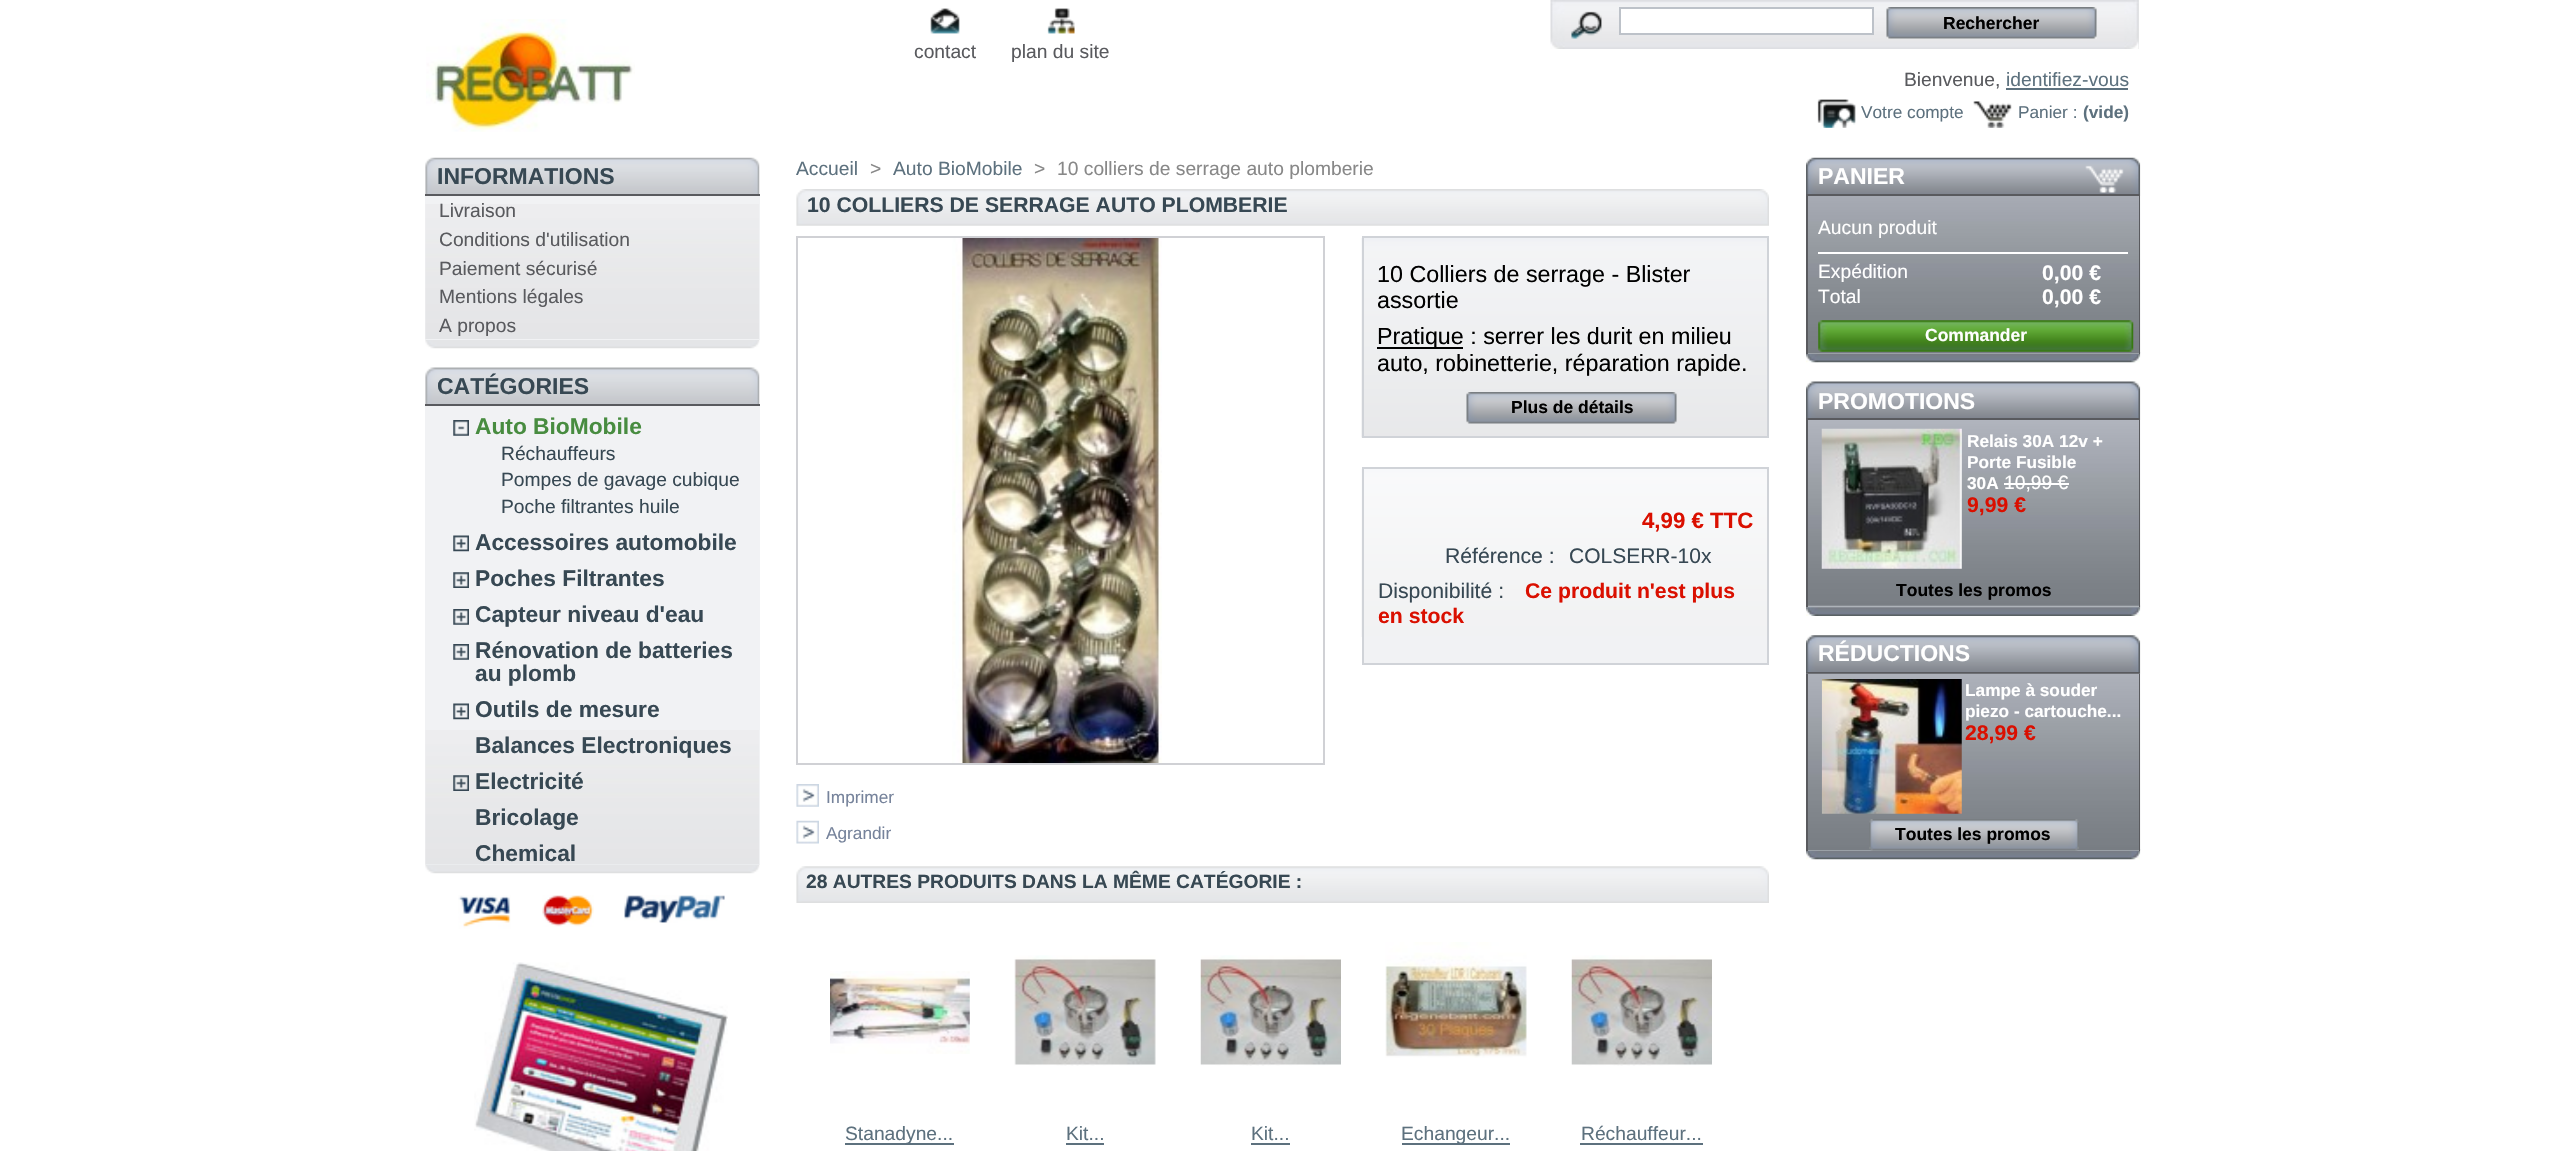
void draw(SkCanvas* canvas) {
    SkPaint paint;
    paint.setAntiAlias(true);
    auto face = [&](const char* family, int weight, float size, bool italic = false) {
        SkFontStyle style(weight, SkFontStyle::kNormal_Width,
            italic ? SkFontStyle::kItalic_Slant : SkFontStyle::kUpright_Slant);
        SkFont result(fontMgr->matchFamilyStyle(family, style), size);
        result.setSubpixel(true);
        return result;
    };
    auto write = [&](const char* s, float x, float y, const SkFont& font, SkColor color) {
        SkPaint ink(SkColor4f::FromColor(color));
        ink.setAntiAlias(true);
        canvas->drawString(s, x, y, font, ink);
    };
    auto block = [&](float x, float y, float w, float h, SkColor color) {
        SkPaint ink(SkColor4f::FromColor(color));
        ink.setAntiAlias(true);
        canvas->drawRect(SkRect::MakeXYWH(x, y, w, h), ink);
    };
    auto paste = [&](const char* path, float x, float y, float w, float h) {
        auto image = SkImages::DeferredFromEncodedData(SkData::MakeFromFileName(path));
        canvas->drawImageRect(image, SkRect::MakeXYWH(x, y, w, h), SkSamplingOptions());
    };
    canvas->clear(SK_ColorWHITE);
    paste("pic1.png", 426, 19, 209, 113);
    block(2138, 0, 1, 49, SkColorSetRGB(229, 230, 231));
    paste("pic2.png", 1550, 0, 589, 49);
    paste("pic3.png", 1571, 11, 31, 28);
    paint.setColor(SK_ColorWHITE);
    canvas->drawRect(SkRect::MakeXYWH(1620, 8, 253, 26), paint);
    paint.setStyle(SkPaint::kStroke_Style);
    paint.setStrokeWidth(2);
    paint.setColor(SkColorSetRGB(189, 194, 201));
    canvas->drawRect(SkRect::MakeXYWH(1620, 8, 253, 26), paint);
    block(1887, 7, 210, 32, SkColorSetRGB(239, 239, 239));
    paste("pic4.png", 1886, 7, 211, 32);
    auto kFont1 = face("Liberation Sans", 700, 17.5f);
    write("Rechercher", 1943, 29, kFont1, SK_ColorBLACK);
    paste("pic5.png", 930, 8, 30, 26);
    auto kFont2 = face("Liberation Sans", 400, 19.25f);
    write("contact", 914, 58, kFont2, SkColorSetRGB(89, 90, 94));
    paste("pic6.png", 1047, 8, 28, 26);
    write("plan du site", 1011, 58, kFont2, SkColorSetRGB(89, 90, 94));
    write("Bienvenue,", 1904, 86, kFont2, SkColorSetRGB(89, 90, 94));
    write("identifiez-vous", 2006, 86, kFont2, SkColorSetRGB(93, 113, 126));
    block(2006, 88, 122, 2, SkColorSetRGB(93, 113, 126));
    paste("pic7.png", 1817, 99, 39, 29);
    auto kFont3 = face("Liberation Sans", 400, 17.25f);
    write("Votre compte", 1861, 118, kFont3, SkColorSetRGB(93, 113, 126));
    paste("pic8.png", 1973, 101, 39, 27);
    write("Panier :", 2018, 118, kFont3, SkColorSetRGB(93, 113, 126));
    auto kFont4 = face("Liberation Sans", 700, 17.25f);
    write("(vide)", 2083, 118, kFont4, SkColorSetRGB(93, 113, 126));
    paste("pic9.png", 425, 340, 335, 9);
    paste("pic10.png", 425, 157, 335, 37);
    block(425, 194, 335, 2, SkColorSetRGB(89, 90, 94));
    auto kFont5 = face("Liberation Sans", 700, 23);
    write("INFORMATIONS", 437, 184, kFont5, SkColorSetRGB(55, 72, 83));
    block(425, 196, 335, 144, SkColorSetRGB(241, 242, 244));
    paste("pic11.png", 425, 204, 334, 135);
    write("Livraison", 439, 217, kFont2, SkColorSetRGB(89, 90, 94));
    write("Conditions d'utilisation", 439, 246, kFont2, SkColorSetRGB(89, 90, 94));
    write("Paiement sécurisé", 439, 275, kFont2, SkColorSetRGB(89, 90, 94));
    write("Mentions légales", 439, 303, kFont2, SkColorSetRGB(89, 90, 94));
    write("A propos", 439, 332, kFont2, SkColorSetRGB(89, 90, 94));
    paste("pic9.png", 425, 865, 335, 9);
    paste("pic12.png", 425, 367, 335, 37);
    block(425, 404, 335, 2, SkColorSetRGB(89, 90, 94));
    write("CATÉGORIES", 437, 394, kFont5, SkColorSetRGB(55, 72, 83));
    block(425, 406, 335, 459, SkColorSetRGB(241, 242, 244));
    paste("pic13.png", 425, 730, 334, 135);
    paste("pic14.png", 453, 420, 16, 16);
    auto kFont6 = face("Liberation Sans", 700, 22.75f);
    write("Auto BioMobile", 475, 434, kFont6, SkColorSetRGB(72, 140, 64));
    write("Réchauffeurs", 501, 460, kFont2, SkColorSetRGB(55, 72, 83));
    write("Pompes de gavage cubique", 501, 486, kFont2, SkColorSetRGB(55, 72, 83));
    write("Poche filtrantes huile", 501, 513, kFont2, SkColorSetRGB(55, 72, 83));
    paste("pic15.png", 453, 535, 16, 17);
    write("Accessoires automobile", 475, 550, kFont6, SkColorSetRGB(55, 72, 83));
    paste("pic16.png", 453, 572, 16, 16);
    write("Poches Filtrantes", 475, 586, kFont6, SkColorSetRGB(55, 72, 83));
    paste("pic17.png", 453, 609, 16, 16);
    write("Capteur niveau d'eau", 475, 622, kFont6, SkColorSetRGB(55, 72, 83));
    paste("pic17.png", 453, 644, 16, 16);
    write("Rénovation de batteries", 475, 658, kFont6, SkColorSetRGB(55, 72, 83));
    write("au plomb", 475, 681, kFont6, SkColorSetRGB(55, 72, 83));
    paste("pic15.png", 453, 703, 16, 17);
    write("Outils de mesure", 475, 717, kFont6, SkColorSetRGB(55, 72, 83));
    write("Balances Electroniques", 475, 753, kFont6, SkColorSetRGB(55, 72, 83));
    paste("pic18.png", 453, 775, 16, 16);
    write("Electricité", 475, 789, kFont6, SkColorSetRGB(55, 72, 83));
    write("Bricolage", 475, 825, kFont6, SkColorSetRGB(55, 72, 83));
    write("Chemical", 475, 861, kFont6, SkColorSetRGB(55, 72, 83));
    paste("pic19.png", 458, 895, 53, 34);
    paste("pic20.png", 542, 895, 52, 32);
    paste("pic21.png", 624, 895, 101, 28);
    paste("pic22.png", 474, 962, 254, 189);
    write("Accueil", 796, 175, kFont2, SkColorSetRGB(93, 113, 126));
    write(">", 870, 175, kFont2, SkColorSetRGB(136, 136, 136));
    write("Auto BioMobile", 893, 175, kFont2, SkColorSetRGB(93, 113, 126));
    write(">", 1034, 175, kFont2, SkColorSetRGB(136, 136, 136));
    write("10 colliers de serrage auto plomberie", 1057, 175, kFont2, SkColorSetRGB(136, 136, 136));
    paste("pic23.png", 796, 189, 973, 37);
    auto kFont7 = face("Liberation Sans", 700, 21.2f);
    write("10 COLLIERS DE SERRAGE AUTO PLOMBERIE", 807, 212, kFont7, SkColorSetRGB(55, 72, 83));
    paste("pic24.png", 1361, 238, 406, 200);
    paint.setColor(SkColorSetRGB(208, 211, 216));
    canvas->drawRect(SkRect::MakeXYWH(1363, 237, 405, 200), paint);
    auto kFont8 = face("Liberation Sans", 400, 23.3f);
    write("10 Colliers de serrage - Blister", 1377, 282, kFont8, SK_ColorBLACK);
    write("assortie", 1377, 308, kFont8, SK_ColorBLACK);
    block(1377, 347, 86, 2, SK_ColorBLACK);
    write("Pratique : serrer les durit en milieu", 1377, 344, kFont8, SK_ColorBLACK);
    write("auto, robinetterie, réparation rapide.", 1377, 371, kFont8, SK_ColorBLACK);
    paste("pic25.png", 1466, 392, 211, 32);
    write("Plus de détails", 1511, 413, kFont1, SK_ColorBLACK);
    block(1364, 637, 403, 26, SkColorSetRGB(241, 242, 244));
    paste("pic26.png", 1361, 469, 406, 168);
    canvas->drawRect(SkRect::MakeXYWH(1363, 468, 405, 196), paint);
    auto kFont9 = face("Liberation Sans", 700, 22.25f);
    write("4,99 € TTC", 1642, 528, kFont9, SkColorSetRGB(218, 15, 0));
    auto kFont10 = face("Liberation Sans", 400, 21.2f);
    write("Référence :", 1445, 563, kFont10, SkColorSetRGB(55, 72, 83));
    auto kFont11 = face("Liberation Sans", 400, 21);
    write("COLSERR-10x", 1569, 563, kFont11, SkColorSetRGB(55, 72, 83));
    write("Disponibilité :", 1378, 598, kFont10, SkColorSetRGB(55, 72, 83));
    write("Ce produit n'est plus", 1525, 598, kFont7, SkColorSetRGB(218, 15, 0));
    write("en stock", 1378, 623, kFont7, SkColorSetRGB(218, 15, 0));
    paint.setColor(SkColorSetRGB(208, 209, 213));
    canvas->drawRect(SkRect::MakeXYWH(797, 237, 527, 527), paint);
    paste("pic27.png", 952, 238, 210, 525);
    paste("pic28.png", 796, 784, 23, 23);
    write("Imprimer", 826, 803, kFont3, SkColorSetRGB(118, 131, 155));
    paste("pic29.png", 796, 820, 23, 24);
    write("Agrandir", 826, 839, kFont3, SkColorSetRGB(118, 131, 155));
    paste("pic30.png", 796, 866, 973, 37);
    auto kFont12 = face("Liberation Sans", 700, 19.25f);
    write("28 AUTRES PRODUITS DANS LA MÊME CATÉGORIE :", 806, 888, kFont12, SkColorSetRGB(55, 72, 83));
    paste("pic31.png", 830, 971, 140, 83);
    block(845, 1143, 109, 2, SkColorSetRGB(93, 113, 126));
    write("Stanadyne...", 845, 1140, kFont2, SkColorSetRGB(93, 113, 126));
    paste("pic32.png", 1014, 955, 142, 111);
    write("Kit...", 1066, 1140, kFont2, SkColorSetRGB(93, 113, 126));
    block(1066, 1143, 38, 2, SkColorSetRGB(93, 113, 126));
    paste("pic33.png", 1200, 955, 141, 111);
    write("Kit...", 1251, 1140, kFont2, SkColorSetRGB(93, 113, 126));
    block(1251, 1143, 39, 2, SkColorSetRGB(93, 113, 126));
    paste("pic34.png", 1385, 942, 142, 116);
    block(1402, 1143, 108, 2, SkColorSetRGB(93, 113, 126));
    write("Echangeur...", 1401, 1140, kFont2, SkColorSetRGB(93, 113, 126));
    paste("pic33.png", 1571, 955, 141, 111);
    write("Réchauffeur...", 1581, 1140, kFont2, SkColorSetRGB(93, 113, 126));
    block(1580, 1143, 123, 2, SkColorSetRGB(93, 113, 126));
    paste("pic35.png", 1806, 352, 335, 11);
    paste("pic36.png", 1806, 157, 335, 39);
    block(1806, 194, 334, 2, SkColorSetRGB(89, 90, 94));
    write("PANIER", 1818, 184, kFont5, SK_ColorWHITE);
    block(1808, 353, 331, 1, SkColorSetRGB(189, 194, 201));
    paste("pic37.png", 1808, 196, 333, 158);
    block(2139, 196, 1, 158, SkColorSetRGB(89, 90, 94));
    block(1806, 196, 2, 158, SkColorSetRGB(89, 90, 94));
    write("Aucun produit", 1818, 234, kFont2, SK_ColorWHITE);
    block(1818, 252, 310, 2, SK_ColorWHITE);
    write("Expédition", 1818, 278, kFont2, SK_ColorWHITE);
    write("0,00 €", 2042, 280, kFont7, SK_ColorWHITE);
    write("Total", 1818, 303, kFont2, SK_ColorWHITE);
    write("0,00 €", 2042, 304, kFont7, SK_ColorWHITE);
    paste("pic38.png", 1818, 320, 316, 32);
    write("Commander", 1925, 341, kFont1, SK_ColorWHITE);
    paste("pic39.png", 1806, 605, 335, 11);
    paste("pic40.png", 1806, 381, 335, 39);
    block(1806, 418, 334, 2, SkColorSetRGB(89, 90, 94));
    write("PROMOTIONS", 1818, 409, kFont5, SK_ColorWHITE);
    paste("pic41.png", 1806, 420, 335, 188);
    block(2139, 420, 1, 187, SkColorSetRGB(89, 90, 94));
    block(1806, 420, 2, 187, SkColorSetRGB(89, 90, 94));
    paste("pic42.png", 1821, 428, 141, 141);
    write("Relais 30A 12v +", 1967, 447, kFont4, SK_ColorWHITE);
    write("Porte Fusible", 1967, 468, kFont4, SK_ColorWHITE);
    write("30A", 1967, 489, kFont4, SK_ColorWHITE);
    write("10,99 €", 2004, 489, kFont2, SK_ColorWHITE);
    block(2004, 483, 65, 2, SK_ColorWHITE);
    write("9,99 €", 1967, 512, kFont7, SkColorSetRGB(218, 15, 0));
    write("Toutes les promos", 1896, 596, kFont1, SK_ColorBLACK);
    paste("pic35.png", 1806, 849, 335, 11);
    paste("pic43.png", 1806, 635, 335, 39);
    block(1806, 672, 334, 2, SkColorSetRGB(89, 90, 94));
    write("RÉDUCTIONS", 1818, 661, kFont5, SK_ColorWHITE);
    block(1808, 850, 331, 1, SkColorSetRGB(189, 194, 201));
    paste("pic44.png", 1806, 673, 335, 178);
    block(2139, 674, 1, 177, SkColorSetRGB(89, 90, 94));
    block(1806, 674, 2, 177, SkColorSetRGB(89, 90, 94));
    paste("pic45.png", 1821, 679, 141, 135);
    write("Lampe à souder", 1965, 696, kFont4, SK_ColorWHITE);
    write("piezo - cartouche...", 1965, 717, kFont4, SK_ColorWHITE);
    write("28,99 €", 1965, 740, kFont7, SkColorSetRGB(218, 15, 0));
    paste("pic46.png", 1869, 819, 210, 32);
    write("Toutes les promos", 1895, 840, kFont1, SK_ColorBLACK);
}
